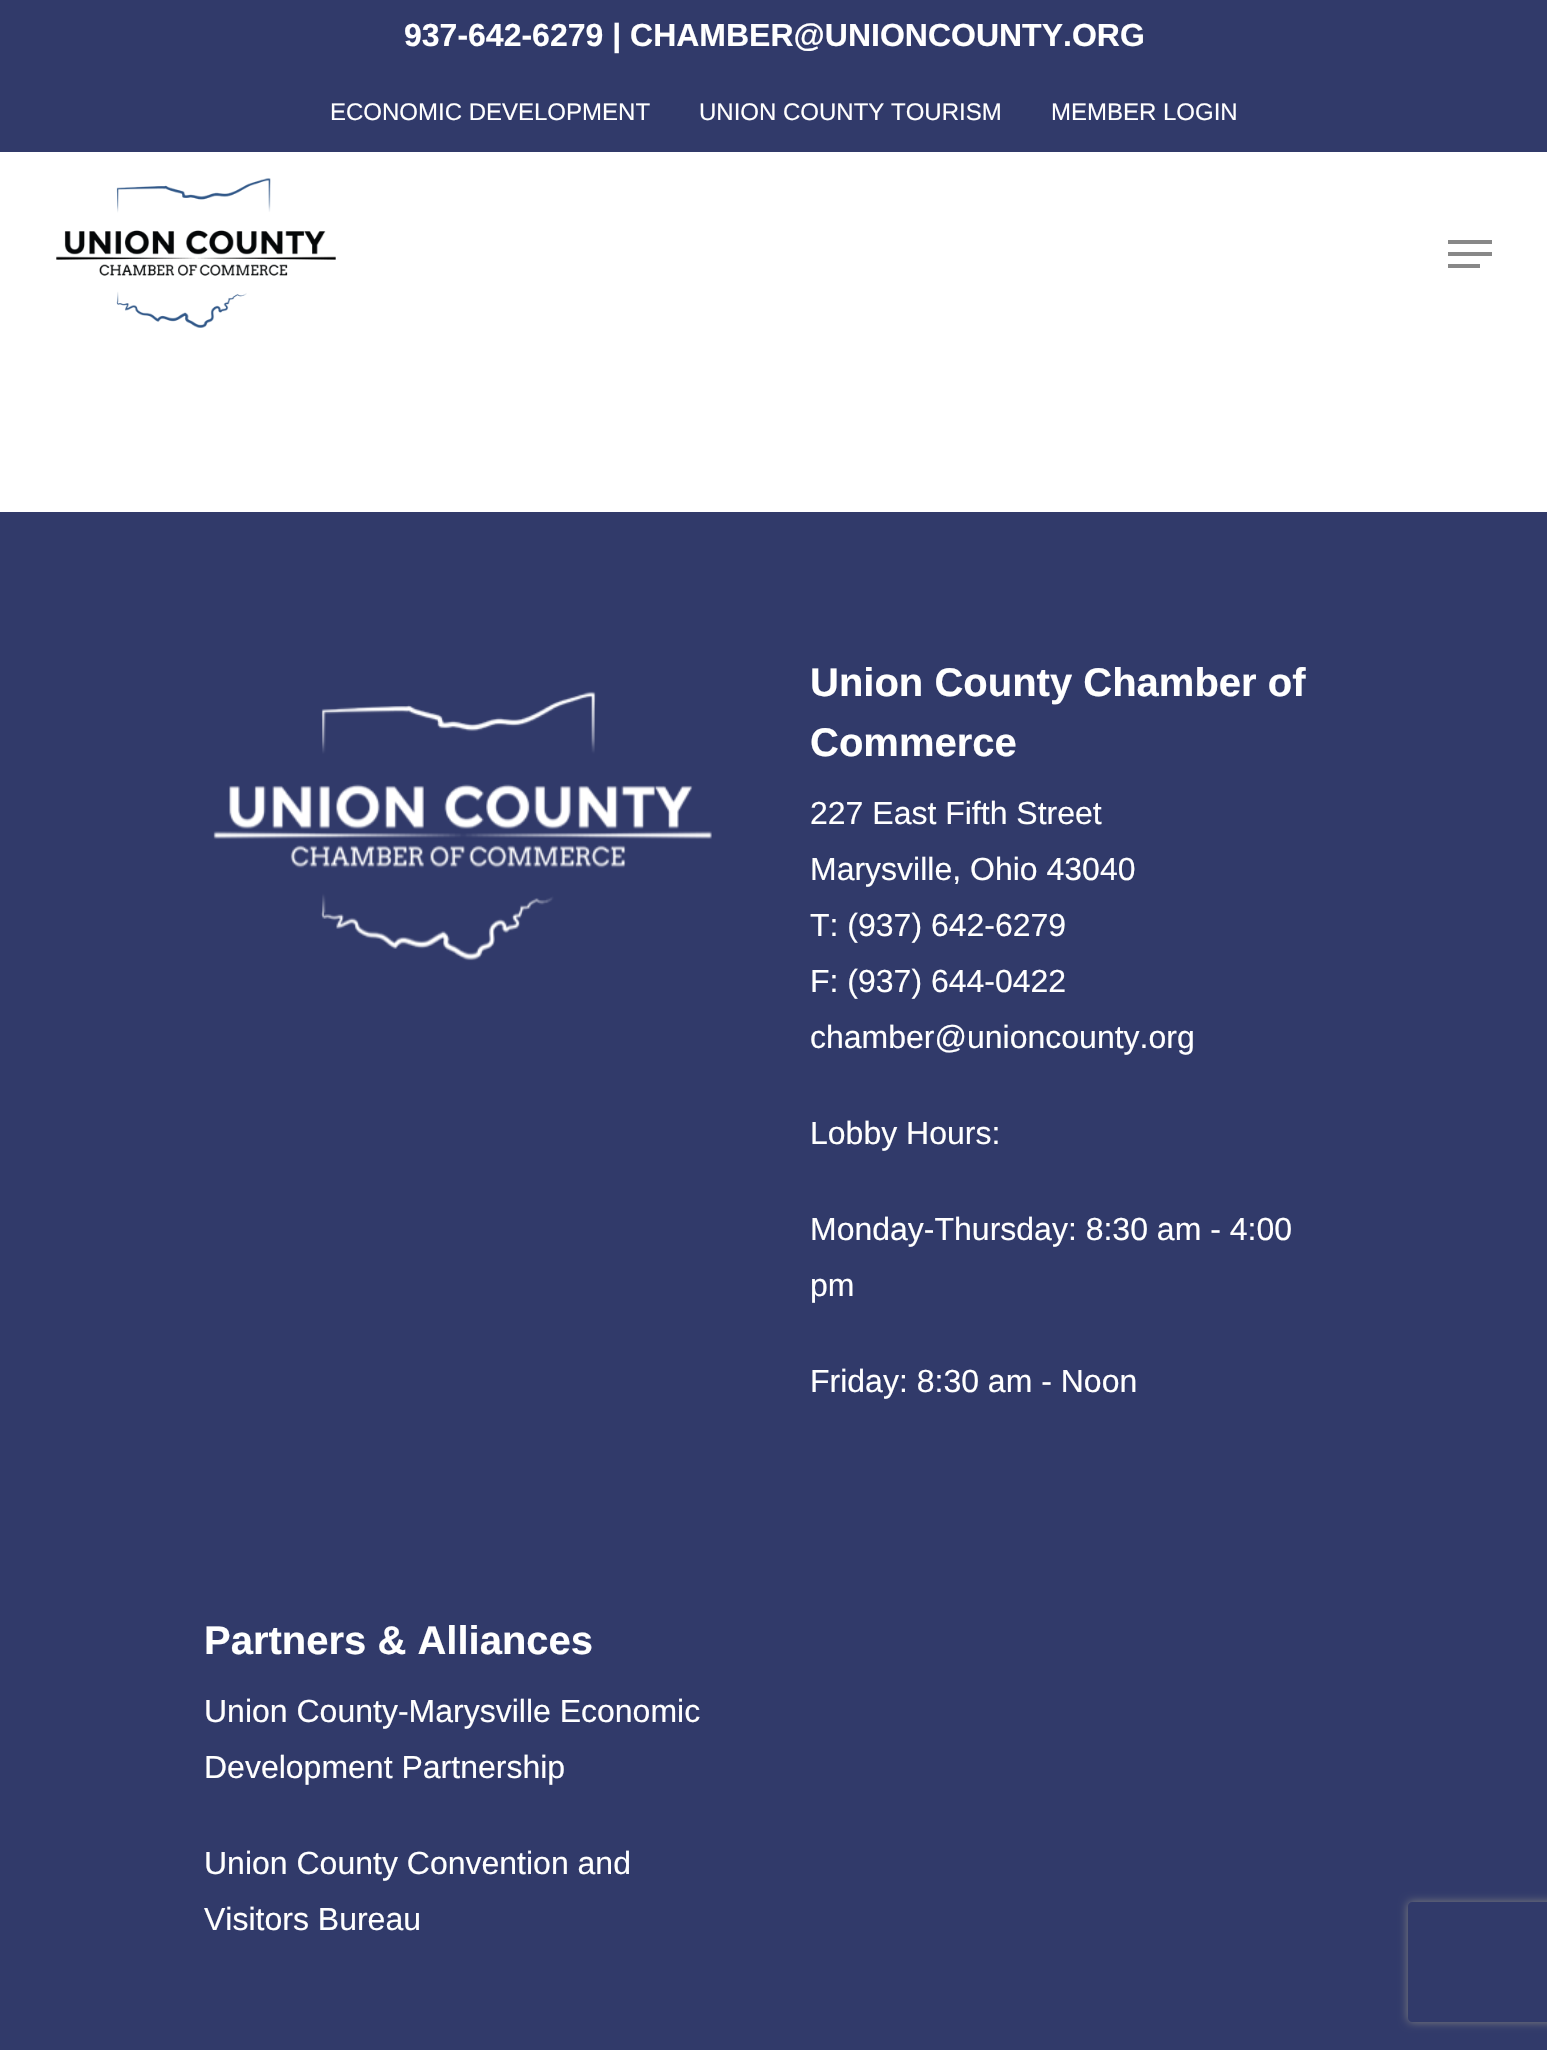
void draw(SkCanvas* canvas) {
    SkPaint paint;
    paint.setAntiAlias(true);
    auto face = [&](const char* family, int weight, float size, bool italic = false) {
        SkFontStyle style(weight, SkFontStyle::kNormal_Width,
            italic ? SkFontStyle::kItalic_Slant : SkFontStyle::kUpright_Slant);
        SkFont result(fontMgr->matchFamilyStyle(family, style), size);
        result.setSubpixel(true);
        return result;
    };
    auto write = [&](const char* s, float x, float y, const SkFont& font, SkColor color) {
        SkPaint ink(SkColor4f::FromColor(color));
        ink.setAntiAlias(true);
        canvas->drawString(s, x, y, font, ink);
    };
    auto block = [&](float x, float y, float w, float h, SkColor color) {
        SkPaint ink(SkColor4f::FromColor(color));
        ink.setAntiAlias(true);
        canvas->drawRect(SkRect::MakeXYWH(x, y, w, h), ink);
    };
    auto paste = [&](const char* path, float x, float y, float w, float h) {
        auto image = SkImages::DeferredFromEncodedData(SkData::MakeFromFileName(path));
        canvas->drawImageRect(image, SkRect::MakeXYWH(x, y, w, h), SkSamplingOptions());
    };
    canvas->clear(SK_ColorWHITE);
    block(0, 0, 1547, 152, SkColorSetRGB(49, 58, 106));
    auto kFont1 = face("Liberation Sans", 700, 32);
    write("937-642-6279 | CHAMBER@UNIONCOUNTY.ORG", 404, 46, kFont1, SK_ColorWHITE);
    auto kFont2 = face("Liberation Sans", 400, 24);
    write("ECONOMIC DEVELOPMENT", 330, 120, kFont2, SK_ColorWHITE);
    write("UNION COUNTY TOURISM", 699, 120, kFont2, SK_ColorWHITE);
    write("MEMBER LOGIN", 1051, 120, kFont2, SK_ColorWHITE);
    paste("pic1.png", 56, 178, 280, 150);
    block(1448, 240, 44, 4, SkColorSetRGB(136, 136, 136));
    block(1448, 264, 32, 4, SkColorSetRGB(136, 136, 136));
    block(1448, 252, 44, 4, SkColorSetRGB(136, 136, 136));
    block(0, 512, 1547, 1538, SkColorSetRGB(49, 58, 106));
    paste("pic2.png", 213, 691, 499, 270);
    auto kFont3 = face("Liberation Sans", 700, 40);
    write("Union County Chamber of", 810, 696, kFont3, SK_ColorWHITE);
    write("Commerce", 810, 756, kFont3, SK_ColorWHITE);
    auto kFont4 = face("Liberation Sans", 400, 32);
    write("227 East Fifth Street", 810, 824, kFont4, SK_ColorWHITE);
    write("Marysville, Ohio 43040", 810, 880, kFont4, SK_ColorWHITE);
    write("T: (937) 642-6279", 810, 936, kFont4, SK_ColorWHITE);
    write("F: (937) 644-0422", 810, 992, kFont4, SK_ColorWHITE);
    write("chamber@unioncounty.org", 810, 1048, kFont4, SK_ColorWHITE);
    write("Lobby Hours:", 810, 1144, kFont4, SK_ColorWHITE);
    write("Monday-Thursday: 8:30 am - 4:00", 810, 1240, kFont4, SK_ColorWHITE);
    write("pm", 810, 1296, kFont4, SK_ColorWHITE);
    write("Friday: 8:30 am - Noon", 810, 1392, kFont4, SK_ColorWHITE);
    write("Partners & Alliances", 204, 1654, kFont3, SK_ColorWHITE);
    write("Union County-Marysville Economic", 204, 1722, kFont4, SK_ColorWHITE);
    write("Development Partnership", 204, 1778, kFont4, SK_ColorWHITE);
    write("Union County Convention and", 204, 1874, kFont4, SK_ColorWHITE);
    write("Visitors Bureau", 204, 1930, kFont4, SK_ColorWHITE);
    canvas->save();
    canvas->clipPath(SkPathBuilder(SkPathFillType::kEvenOdd).moveTo(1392, 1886).lineTo(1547, 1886).lineTo(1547, 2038).lineTo(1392, 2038).close().moveTo(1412, 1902).lineTo(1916, 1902).cubicTo(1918, 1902, 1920, 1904, 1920, 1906).lineTo(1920, 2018).cubicTo(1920, 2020, 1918, 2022, 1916, 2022).lineTo(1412, 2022).cubicTo(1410, 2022, 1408, 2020, 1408, 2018).lineTo(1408, 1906).cubicTo(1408, 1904, 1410, 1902, 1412, 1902).close().detach(), true);
    paint.setColor(SkColorSetRGB(128, 128, 128));
    paint.setMaskFilter(SkMaskFilter::MakeBlur(kNormal_SkBlurStyle, 5));
    canvas->drawRoundRect(SkRect::MakeXYWH(1408, 1902, 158, 120), 4, 4, paint);
    paint.setMaskFilter(nullptr);
    canvas->restore();
}
